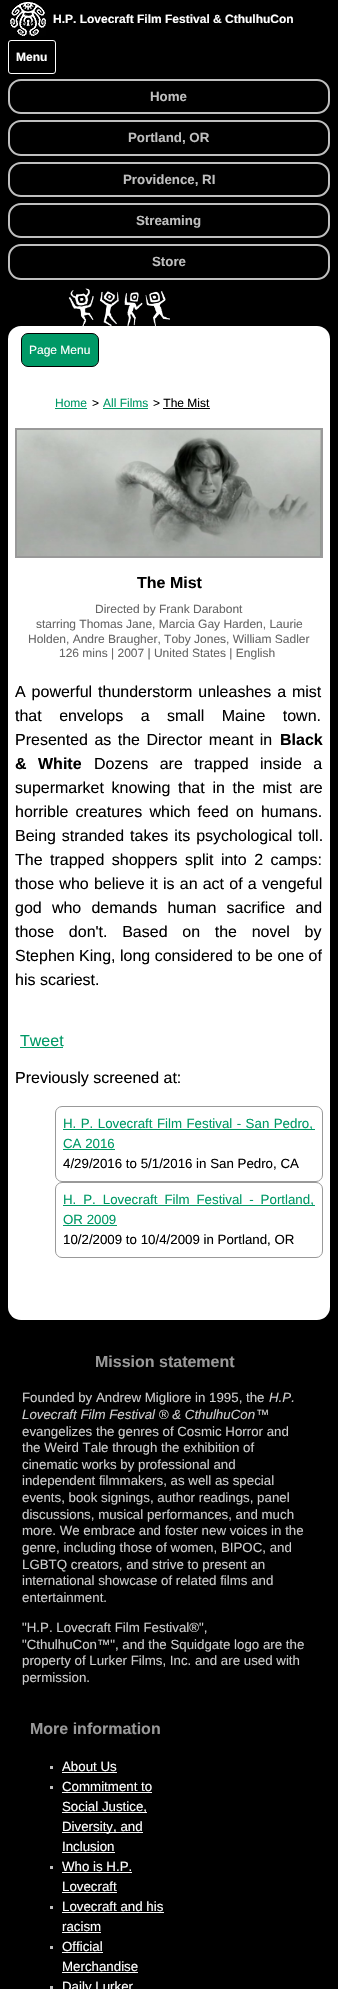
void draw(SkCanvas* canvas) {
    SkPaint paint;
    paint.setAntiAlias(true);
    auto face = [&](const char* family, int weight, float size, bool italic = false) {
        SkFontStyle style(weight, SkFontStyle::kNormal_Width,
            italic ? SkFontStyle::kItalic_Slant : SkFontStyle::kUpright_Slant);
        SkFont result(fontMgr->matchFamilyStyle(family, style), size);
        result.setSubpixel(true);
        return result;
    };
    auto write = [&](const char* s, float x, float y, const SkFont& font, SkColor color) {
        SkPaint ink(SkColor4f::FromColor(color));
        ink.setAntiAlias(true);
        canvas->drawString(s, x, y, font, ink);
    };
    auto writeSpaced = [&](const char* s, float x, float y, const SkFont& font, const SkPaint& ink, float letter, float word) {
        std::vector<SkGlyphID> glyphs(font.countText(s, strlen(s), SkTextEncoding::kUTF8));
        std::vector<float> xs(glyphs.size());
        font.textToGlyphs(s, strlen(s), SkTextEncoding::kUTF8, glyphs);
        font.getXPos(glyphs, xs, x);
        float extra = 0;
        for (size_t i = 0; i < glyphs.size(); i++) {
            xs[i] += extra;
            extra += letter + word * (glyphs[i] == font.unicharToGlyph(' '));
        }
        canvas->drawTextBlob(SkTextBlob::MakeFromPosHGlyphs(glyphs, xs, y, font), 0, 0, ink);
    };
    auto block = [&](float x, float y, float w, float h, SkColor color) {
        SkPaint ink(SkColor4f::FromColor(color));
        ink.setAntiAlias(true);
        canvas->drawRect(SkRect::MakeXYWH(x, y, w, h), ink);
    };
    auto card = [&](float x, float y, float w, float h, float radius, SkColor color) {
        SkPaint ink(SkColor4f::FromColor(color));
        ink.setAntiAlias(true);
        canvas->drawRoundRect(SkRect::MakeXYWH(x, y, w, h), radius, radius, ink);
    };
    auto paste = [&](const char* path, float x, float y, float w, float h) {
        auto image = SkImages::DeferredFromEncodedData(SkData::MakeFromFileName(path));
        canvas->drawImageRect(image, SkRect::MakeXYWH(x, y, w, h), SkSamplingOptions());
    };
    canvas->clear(SK_ColorBLACK);
    paste("pic1.png", 10, 2, 36, 34);
    auto kFont1 = face("Liberation Sans", 700, 12);
    write("H.P. Lovecraft Film Festival & CthulhuCon", 53, 23, kFont1, SK_ColorWHITE);
    paint.setStyle(SkPaint::kStroke_Style);
    paint.setStrokeWidth(1);
    paint.setColor(SK_ColorWHITE);
    canvas->drawRoundRect(SkRect::MakeXYWH(8.5f, 40.5f, 47, 33), 2.5f, 2.5f, paint);
    write("Menu", 16, 61, kFont1, SK_ColorWHITE);
    paint.setStrokeWidth(2);
    paint.setColor(SkColorSetRGB(191, 191, 191));
    canvas->drawRoundRect(SkRect::MakeXYWH(9, 80, 320, 33), 12, 12, paint);
    auto kFont2 = face("Liberation Sans", 700, 13.3f);
    write("Home", 150, 101, kFont2, SkColorSetRGB(191, 191, 191));
    canvas->drawRoundRect(SkRect::MakeXYWH(9, 121, 320, 34), 12, 12, paint);
    write("Portland, OR", 128, 142, kFont2, SkColorSetRGB(191, 191, 191));
    canvas->drawRoundRect(SkRect::MakeXYWH(9, 163, 320, 33), 12, 12, paint);
    write("Providence, RI", 123, 184, kFont2, SkColorSetRGB(191, 191, 191));
    canvas->drawRoundRect(SkRect::MakeXYWH(9, 204, 320, 33), 12, 12, paint);
    write("Streaming", 136, 225, kFont2, SkColorSetRGB(191, 191, 191));
    canvas->drawRoundRect(SkRect::MakeXYWH(9, 245, 320, 34), 12, 12, paint);
    write("Store", 152, 266, kFont2, SkColorSetRGB(191, 191, 191));
    paste("pic2.png", 68, 288, 102, 38);
    card(8, 326, 322, 994, 13, SK_ColorWHITE);
    paint.setStyle(SkPaint::kFill_Style);
    paint.setColor(SkColorSetRGB(0, 153, 102));
    canvas->drawRoundRect(SkRect::MakeXYWH(21.5f, 333.5f, 77, 33), 6.5f, 6.5f, paint);
    paint.setStyle(SkPaint::kStroke_Style);
    paint.setStrokeWidth(1);
    paint.setColor(SK_ColorBLACK);
    canvas->drawRoundRect(SkRect::MakeXYWH(21.5f, 333.5f, 77, 33), 6.5f, 6.5f, paint);
    auto kFont3 = face("Liberation Sans", 400, 12);
    write("Page Menu", 29, 354, kFont3, SK_ColorWHITE);
    write("Home", 55, 407, kFont3, SkColorSetRGB(0, 153, 102));
    block(55, 408, 32, 1, SkColorSetRGB(0, 153, 102));
    write(">", 92, 407, kFont3, SK_ColorBLACK);
    write("All Films", 103, 407, kFont3, SkColorSetRGB(0, 153, 102));
    block(103, 408, 45, 1, SkColorSetRGB(0, 153, 102));
    write("> The Mist", 153, 407, kFont3, SK_ColorBLACK);
    block(163, 408, 47, 1, SK_ColorBLACK);
    paint.setStrokeWidth(2);
    paint.setColor(SkColorSetRGB(153, 153, 153));
    canvas->drawRect(SkRect::MakeXYWH(16, 429, 306, 128), paint);
    paste("pic3.png", 17, 430, 304, 126);
    auto kFont4 = face("Liberation Sans", 700, 16);
    write("The Mist", 137, 588, kFont4, SK_ColorBLACK);
    write("Directed by Frank Darabont", 95, 613, kFont3, SkColorSetRGB(102, 102, 102));
    write("starring Thomas Jane, Marcia Gay Harden, Laurie", 36, 628, kFont3, SkColorSetRGB(102, 102, 102));
    write("Holden, Andre Braugher, Toby Jones, William Sadler", 28, 643, kFont3, SkColorSetRGB(102, 102, 102));
    write("126 mins | 2007 | United States | English", 59, 657, kFont3, SkColorSetRGB(102, 102, 102));
    auto kFont5 = face("Liberation Sans", 400, 16);
    paint.setStyle(SkPaint::kFill_Style);
    paint.setColor(SK_ColorBLACK);
    writeSpaced("A powerful thunderstorm unleashes a mist", 15, 697, kFont5, paint, 0, 1.5f);
    writeSpaced("that envelops a small Maine town.", 15, 721, kFont5, paint, 0, 13);
    writeSpaced("Presented as the Director meant in", 15, 745, kFont5, paint, 0, 2);
    write("Black", 280, 745, kFont4, SK_ColorBLACK);
    writeSpaced("& White", 15, 769, kFont4, paint, 0, 7);
    writeSpaced("Dozens are trapped inside a", 94, 769, kFont5, paint, 0, 7);
    writeSpaced("supermarket knowing that in the mist are", 15, 793, kFont5, paint, 0, 3.25f);
    writeSpaced("horrible creatures which feed on humans.", 15, 817, kFont5, paint, 0, 2.75f);
    writeSpaced("Being stranded takes its psychological toll.", 15, 841, kFont5, paint, 0, 1.5f);
    writeSpaced("The trapped shoppers split into 2 camps:", 15, 865, kFont5, paint, 0, 3);
    writeSpaced("those who believe it is an act of a vengeful", 15, 889, kFont5, paint, 0, 0.75f);
    writeSpaced("god who demands human sacrifice and", 15, 913, kFont5, paint, 0, 5.75f);
    writeSpaced("those don't. Based on the novel by", 15, 937, kFont5, paint, 0, 10.25f);
    write("Stephen King, long considered to be one of", 15, 961, kFont5, SK_ColorBLACK);
    write("his scariest.", 15, 985, kFont5, SK_ColorBLACK);
    write("Tweet", 20, 1046, kFont5, SkColorSetRGB(0, 153, 102));
    block(20, 1047, 43, 1, SkColorSetRGB(0, 153, 102));
    write("Previously screened at:", 15, 1083, kFont5, SK_ColorBLACK);
    paint.setStyle(SkPaint::kStroke_Style);
    paint.setStrokeWidth(1);
    paint.setColor(SkColorSetRGB(153, 153, 153));
    canvas->drawRoundRect(SkRect::MakeXYWH(55.5f, 1106.5f, 267, 75), 6.5f, 6.5f, paint);
    block(63, 1129, 252, 1, SkColorSetRGB(0, 153, 102));
    auto kFont6 = face("Liberation Sans", 400, 13.3f);
    paint.setStyle(SkPaint::kFill_Style);
    paint.setColor(SkColorSetRGB(0, 153, 102));
    writeSpaced("H. P. Lovecraft Film Festival - San Pedro,", 63, 1128, kFont6, paint, 0, 0.75f);
    write("CA 2016", 63, 1148, kFont6, SkColorSetRGB(0, 153, 102));
    block(63, 1149, 52, 1, SkColorSetRGB(0, 153, 102));
    write("4/29/2016 to 5/1/2016 in San Pedro, CA", 63, 1168, kFont6, SK_ColorBLACK);
    paint.setStyle(SkPaint::kStroke_Style);
    paint.setColor(SkColorSetRGB(153, 153, 153));
    canvas->drawRoundRect(SkRect::MakeXYWH(55.5f, 1182.5f, 267, 75), 6.5f, 6.5f, paint);
    block(63, 1205, 252, 1, SkColorSetRGB(0, 153, 102));
    paint.setStyle(SkPaint::kFill_Style);
    paint.setColor(SkColorSetRGB(0, 153, 102));
    writeSpaced("H. P. Lovecraft Film Festival - Portland,", 63, 1204, kFont6, paint, 0, 3.25f);
    write("OR 2009", 63, 1224, kFont6, SkColorSetRGB(0, 153, 102));
    block(63, 1225, 54, 1, SkColorSetRGB(0, 153, 102));
    write("10/2/2009 to 10/4/2009 in Portland, OR", 63, 1244, kFont6, SK_ColorBLACK);
    write("Mission statement", 95, 1367, kFont4, SkColorSetRGB(153, 153, 153));
    write("Founded by Andrew Migliore in 1995, the", 22, 1402, kFont6, SkColorSetRGB(204, 204, 204));
    auto kFont7 = face("Liberation Sans", 400, 13.3f, true);
    write("H.P.", 269, 1402, kFont7, SkColorSetRGB(204, 204, 204));
    write("Lovecraft Film Festival ® & CthulhuCon", 22, 1419, kFont7, SkColorSetRGB(204, 204, 204));
    write("™", 256, 1419, kFont6, SkColorSetRGB(204, 204, 204));
    write("evangelizes the genres of Cosmic Horror and", 22, 1436, kFont6, SkColorSetRGB(204, 204, 204));
    write("the Weird Tale through the exhibition of", 22, 1452, kFont6, SkColorSetRGB(204, 204, 204));
    write("cinematic works by professional and", 22, 1469, kFont6, SkColorSetRGB(204, 204, 204));
    write("independent filmmakers, as well as special", 22, 1485, kFont6, SkColorSetRGB(204, 204, 204));
    write("events, book signings, author readings, panel", 22, 1502, kFont6, SkColorSetRGB(204, 204, 204));
    write("discussions, musical performances, and much", 22, 1519, kFont6, SkColorSetRGB(204, 204, 204));
    write("more. We embrace and foster new voices in the", 22, 1535, kFont6, SkColorSetRGB(204, 204, 204));
    write("genre, including those of women, BIPOC, and", 22, 1552, kFont6, SkColorSetRGB(204, 204, 204));
    write("LGBTQ creators, and strive to present an", 22, 1569, kFont6, SkColorSetRGB(204, 204, 204));
    write("international showcase of related films and", 22, 1585, kFont6, SkColorSetRGB(204, 204, 204));
    write("entertainment.", 22, 1602, kFont6, SkColorSetRGB(204, 204, 204));
    write("\"H.P. Lovecraft Film Festival®\",", 22, 1632, kFont6, SkColorSetRGB(204, 204, 204));
    write("\"CthulhuCon™\", and the Squidgate logo are the", 22, 1649, kFont6, SkColorSetRGB(204, 204, 204));
    write("property of Lurker Films, Inc. and are used with", 22, 1665, kFont6, SkColorSetRGB(204, 204, 204));
    write("permission.", 22, 1682, kFont6, SkColorSetRGB(204, 204, 204));
    write("More information", 30, 1734, kFont4, SkColorSetRGB(153, 153, 153));
    block(50, 1766, 3, 3, SkColorSetRGB(191, 191, 191));
    write("About Us", 62, 1771, kFont6, SK_ColorWHITE);
    block(62, 1772, 55, 1, SK_ColorWHITE);
    block(50, 1786, 3, 3, SkColorSetRGB(191, 191, 191));
    write("Commitment to", 62, 1791, kFont6, SK_ColorWHITE);
    block(62, 1792, 90, 1, SK_ColorWHITE);
    block(62, 1812, 85, 1, SK_ColorWHITE);
    write("Social Justice,", 62, 1811, kFont6, SK_ColorWHITE);
    block(62, 1832, 81, 1, SK_ColorWHITE);
    write("Diversity, and", 62, 1831, kFont6, SK_ColorWHITE);
    write("Inclusion", 62, 1851, kFont6, SK_ColorWHITE);
    block(62, 1852, 53, 1, SK_ColorWHITE);
    block(50, 1866, 3, 3, SkColorSetRGB(191, 191, 191));
    write("Who is H.P.", 62, 1871, kFont6, SK_ColorWHITE);
    block(62, 1872, 70, 1, SK_ColorWHITE);
    write("Lovecraft", 62, 1891, kFont6, SK_ColorWHITE);
    block(62, 1892, 55, 1, SK_ColorWHITE);
    block(50, 1906, 3, 3, SkColorSetRGB(191, 191, 191));
    write("Lovecraft and his", 62, 1911, kFont6, SK_ColorWHITE);
    block(62, 1912, 102, 1, SK_ColorWHITE);
    write("racism", 62, 1931, kFont6, SK_ColorWHITE);
    block(62, 1932, 39, 1, SK_ColorWHITE);
    block(50, 1946, 3, 3, SkColorSetRGB(191, 191, 191));
    write("Official", 62, 1951, kFont6, SK_ColorWHITE);
    block(62, 1952, 41, 1, SK_ColorWHITE);
    write("Merchandise", 62, 1971, kFont6, SK_ColorWHITE);
    block(62, 1972, 76, 1, SK_ColorWHITE);
    block(50, 1986, 3, 3, SkColorSetRGB(191, 191, 191));
    write("Daily Lurker", 62, 1991, kFont6, SK_ColorWHITE);
}
